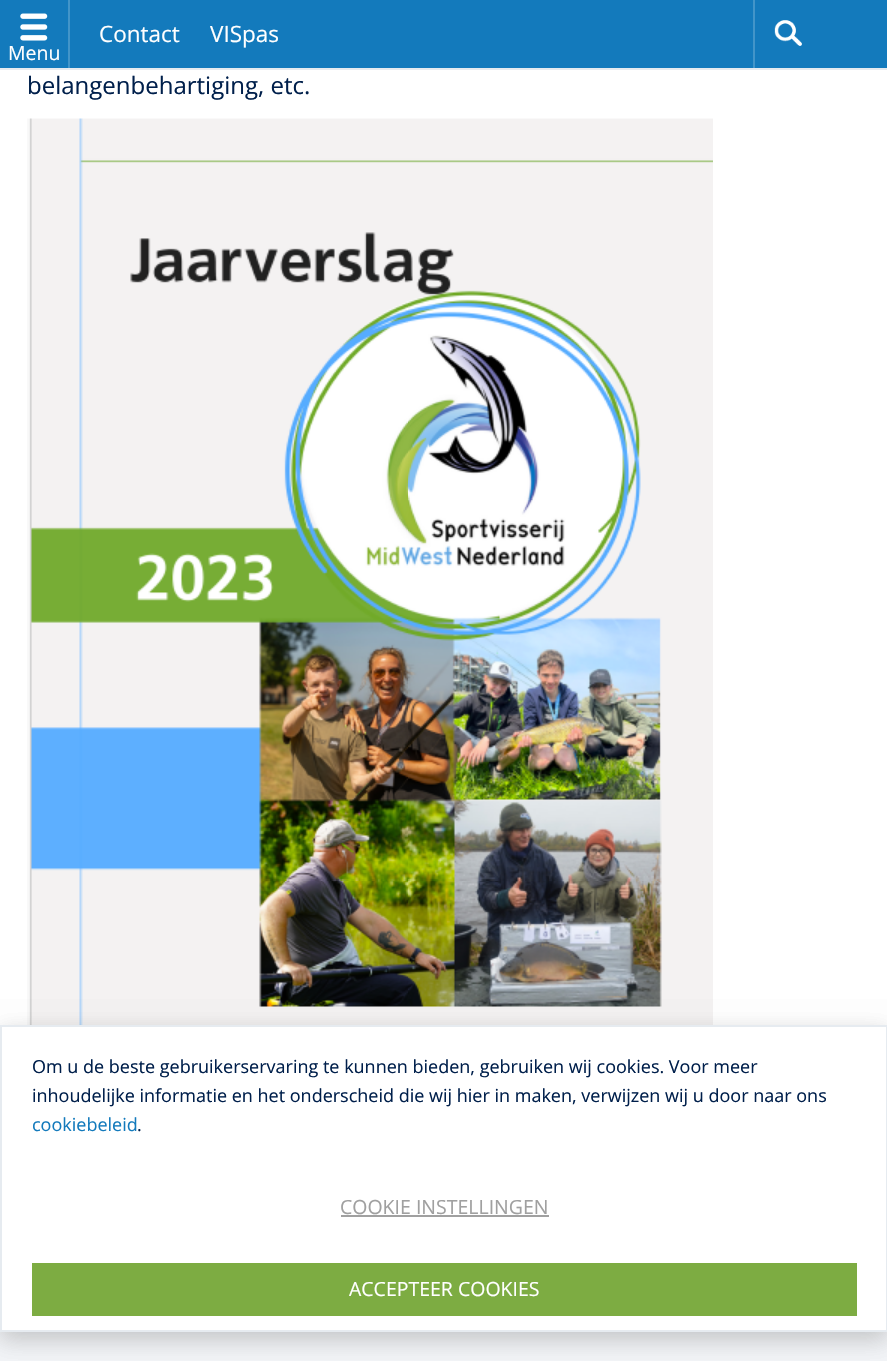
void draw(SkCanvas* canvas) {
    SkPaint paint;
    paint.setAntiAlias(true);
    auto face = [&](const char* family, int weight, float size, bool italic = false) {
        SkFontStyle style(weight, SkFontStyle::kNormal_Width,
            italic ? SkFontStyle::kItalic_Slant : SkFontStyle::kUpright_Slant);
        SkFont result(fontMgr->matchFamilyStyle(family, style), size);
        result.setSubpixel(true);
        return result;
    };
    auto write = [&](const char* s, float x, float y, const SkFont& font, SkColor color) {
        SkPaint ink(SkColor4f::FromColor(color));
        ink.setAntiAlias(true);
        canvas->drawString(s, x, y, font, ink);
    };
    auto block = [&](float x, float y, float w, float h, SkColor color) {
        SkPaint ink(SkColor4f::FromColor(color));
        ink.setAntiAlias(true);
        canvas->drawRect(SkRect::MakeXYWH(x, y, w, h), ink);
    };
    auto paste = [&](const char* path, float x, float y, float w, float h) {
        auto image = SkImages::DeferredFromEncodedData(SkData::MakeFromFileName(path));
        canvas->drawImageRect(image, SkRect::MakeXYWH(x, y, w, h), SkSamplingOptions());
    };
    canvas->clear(SK_ColorWHITE);
    block(0, 0, 887, 68, SkColorSetRGB(19, 122, 188));
    block(0, 68, 887, 2, SkColorSetRGB(230, 235, 240));
    auto kFont1 = face("Open Sans", 400, 22.5f);
    write("Contact", 99, 42, kFont1, SK_ColorWHITE);
    write("VISpas", 210, 42, kFont1, SK_ColorWHITE);
    paste("pic1.png", 774, 20, 28, 26);
    block(753, 0, 2, 68, SkColorSetRGB(66, 149, 201));
    block(68, 0, 2, 68, SkColorSetRGB(66, 149, 201));
    paste("pic2.png", 20, 13, 28, 28);
    auto kFont2 = face("Open Sans", 400, 19.5f);
    write("Menu", 8, 60, kFont2, SK_ColorWHITE);
    auto kFont3 = face("Open Sans", 400, 24);
    write("belangenbehartiging, etc.", 27, 94, kFont3, SkColorSetRGB(0, 31, 75));
    paste("pic3.png", 27, 118, 686, 907);
    block(0, 1332, 887, 29, SkColorSetRGB(243, 245, 248));
    paint.setColor(SkColorSetARGB(26, 0, 0, 0));
    paint.setMaskFilter(SkMaskFilter::MakeBlur(kNormal_SkBlurStyle, 11));
    canvas->drawRect(SkRect::MakeXYWH(0, 1032, 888, 308), paint);
    paint.setMaskFilter(nullptr);
    paint.setMaskFilter(SkMaskFilter::MakeBlur(kNormal_SkBlurStyle, 11));
    canvas->drawRect(SkRect::MakeXYWH(0, 1032, 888, 308), paint);
    paint.setMaskFilter(nullptr);
    paint.setColor(SK_ColorWHITE);
    canvas->drawRect(SkRect::MakeXYWH(1, 1026, 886, 305), paint);
    paint.setStyle(SkPaint::kStroke_Style);
    paint.setStrokeWidth(2);
    paint.setColor(SkColorSetRGB(230, 235, 240));
    canvas->drawRect(SkRect::MakeXYWH(1, 1026, 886, 305), paint);
    auto kFont4 = face("Open Sans", 400, 18);
    write("Om u de beste gebruikerservaring te kunnen bieden, gebruiken wij cookies. Voor meer", 32, 1073, kFont4, SkColorSetRGB(0, 31, 75));
    write("inhoudelijke informatie en het onderscheid die wij hier in maken, verwijzen wij u door naar ons", 32, 1102, kFont4, SkColorSetRGB(0, 31, 75));
    write("cookiebeleid", 32, 1131, kFont4, SkColorSetRGB(19, 122, 188));
    write(".", 137, 1131, kFont4, SkColorSetRGB(0, 31, 75));
    write("COOKIE INSTELLINGEN", 340, 1214, kFont2, SkColorSetRGB(160, 160, 160));
    block(341, 1215, 208, 2, SkColorSetRGB(160, 160, 160));
    block(32, 1263, 825, 53, SkColorSetRGB(125, 172, 66));
    write("ACCEPTEER COOKIES", 349, 1296, kFont2, SK_ColorWHITE);
}
